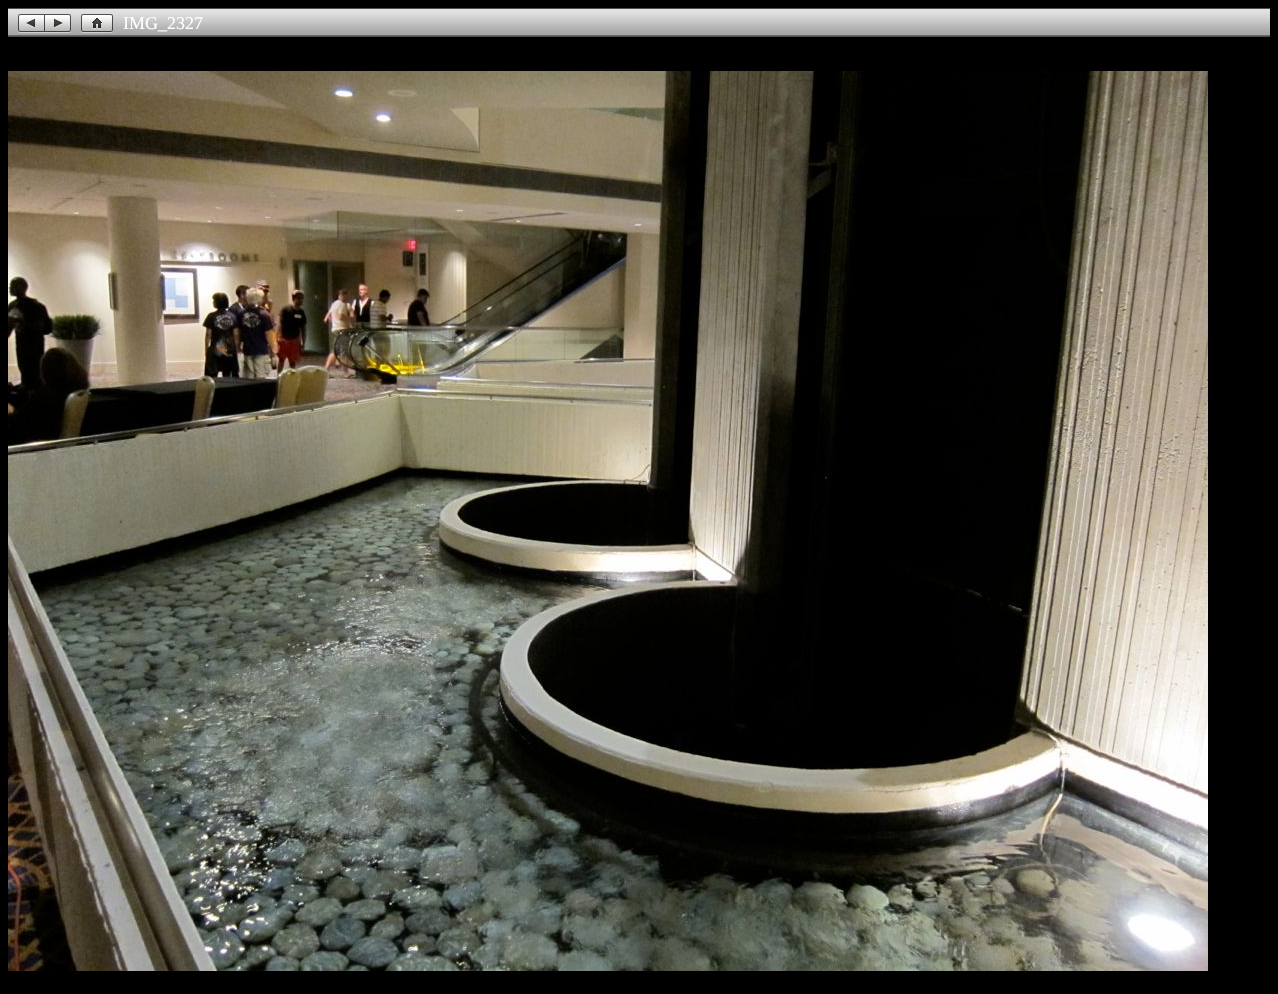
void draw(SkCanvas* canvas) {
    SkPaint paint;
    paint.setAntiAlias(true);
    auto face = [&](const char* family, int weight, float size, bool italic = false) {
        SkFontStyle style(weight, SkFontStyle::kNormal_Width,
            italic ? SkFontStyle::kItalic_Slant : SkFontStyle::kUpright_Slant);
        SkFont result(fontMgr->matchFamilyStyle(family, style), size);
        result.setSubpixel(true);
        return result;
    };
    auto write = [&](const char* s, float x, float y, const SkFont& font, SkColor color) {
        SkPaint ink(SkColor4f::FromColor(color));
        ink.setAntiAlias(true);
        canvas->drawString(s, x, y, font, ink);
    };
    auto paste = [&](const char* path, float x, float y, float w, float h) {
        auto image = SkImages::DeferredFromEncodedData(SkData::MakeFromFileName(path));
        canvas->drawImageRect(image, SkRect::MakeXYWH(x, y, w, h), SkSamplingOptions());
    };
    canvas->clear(SK_ColorBLACK);
    paste("pic1.png", 8, 8, 1262, 29);
    paste("pic2.png", 18, 14, 27, 19);
    paste("pic3.png", 45, 14, 26, 19);
    paste("pic4.png", 81, 14, 32, 19);
    auto kFont1 = face("Liberation Serif", 400, 18);
    write("IMG_2327", 123, 29, kFont1, SK_ColorWHITE);
    paste("pic5.png", 8, 71, 1200, 900);
}
